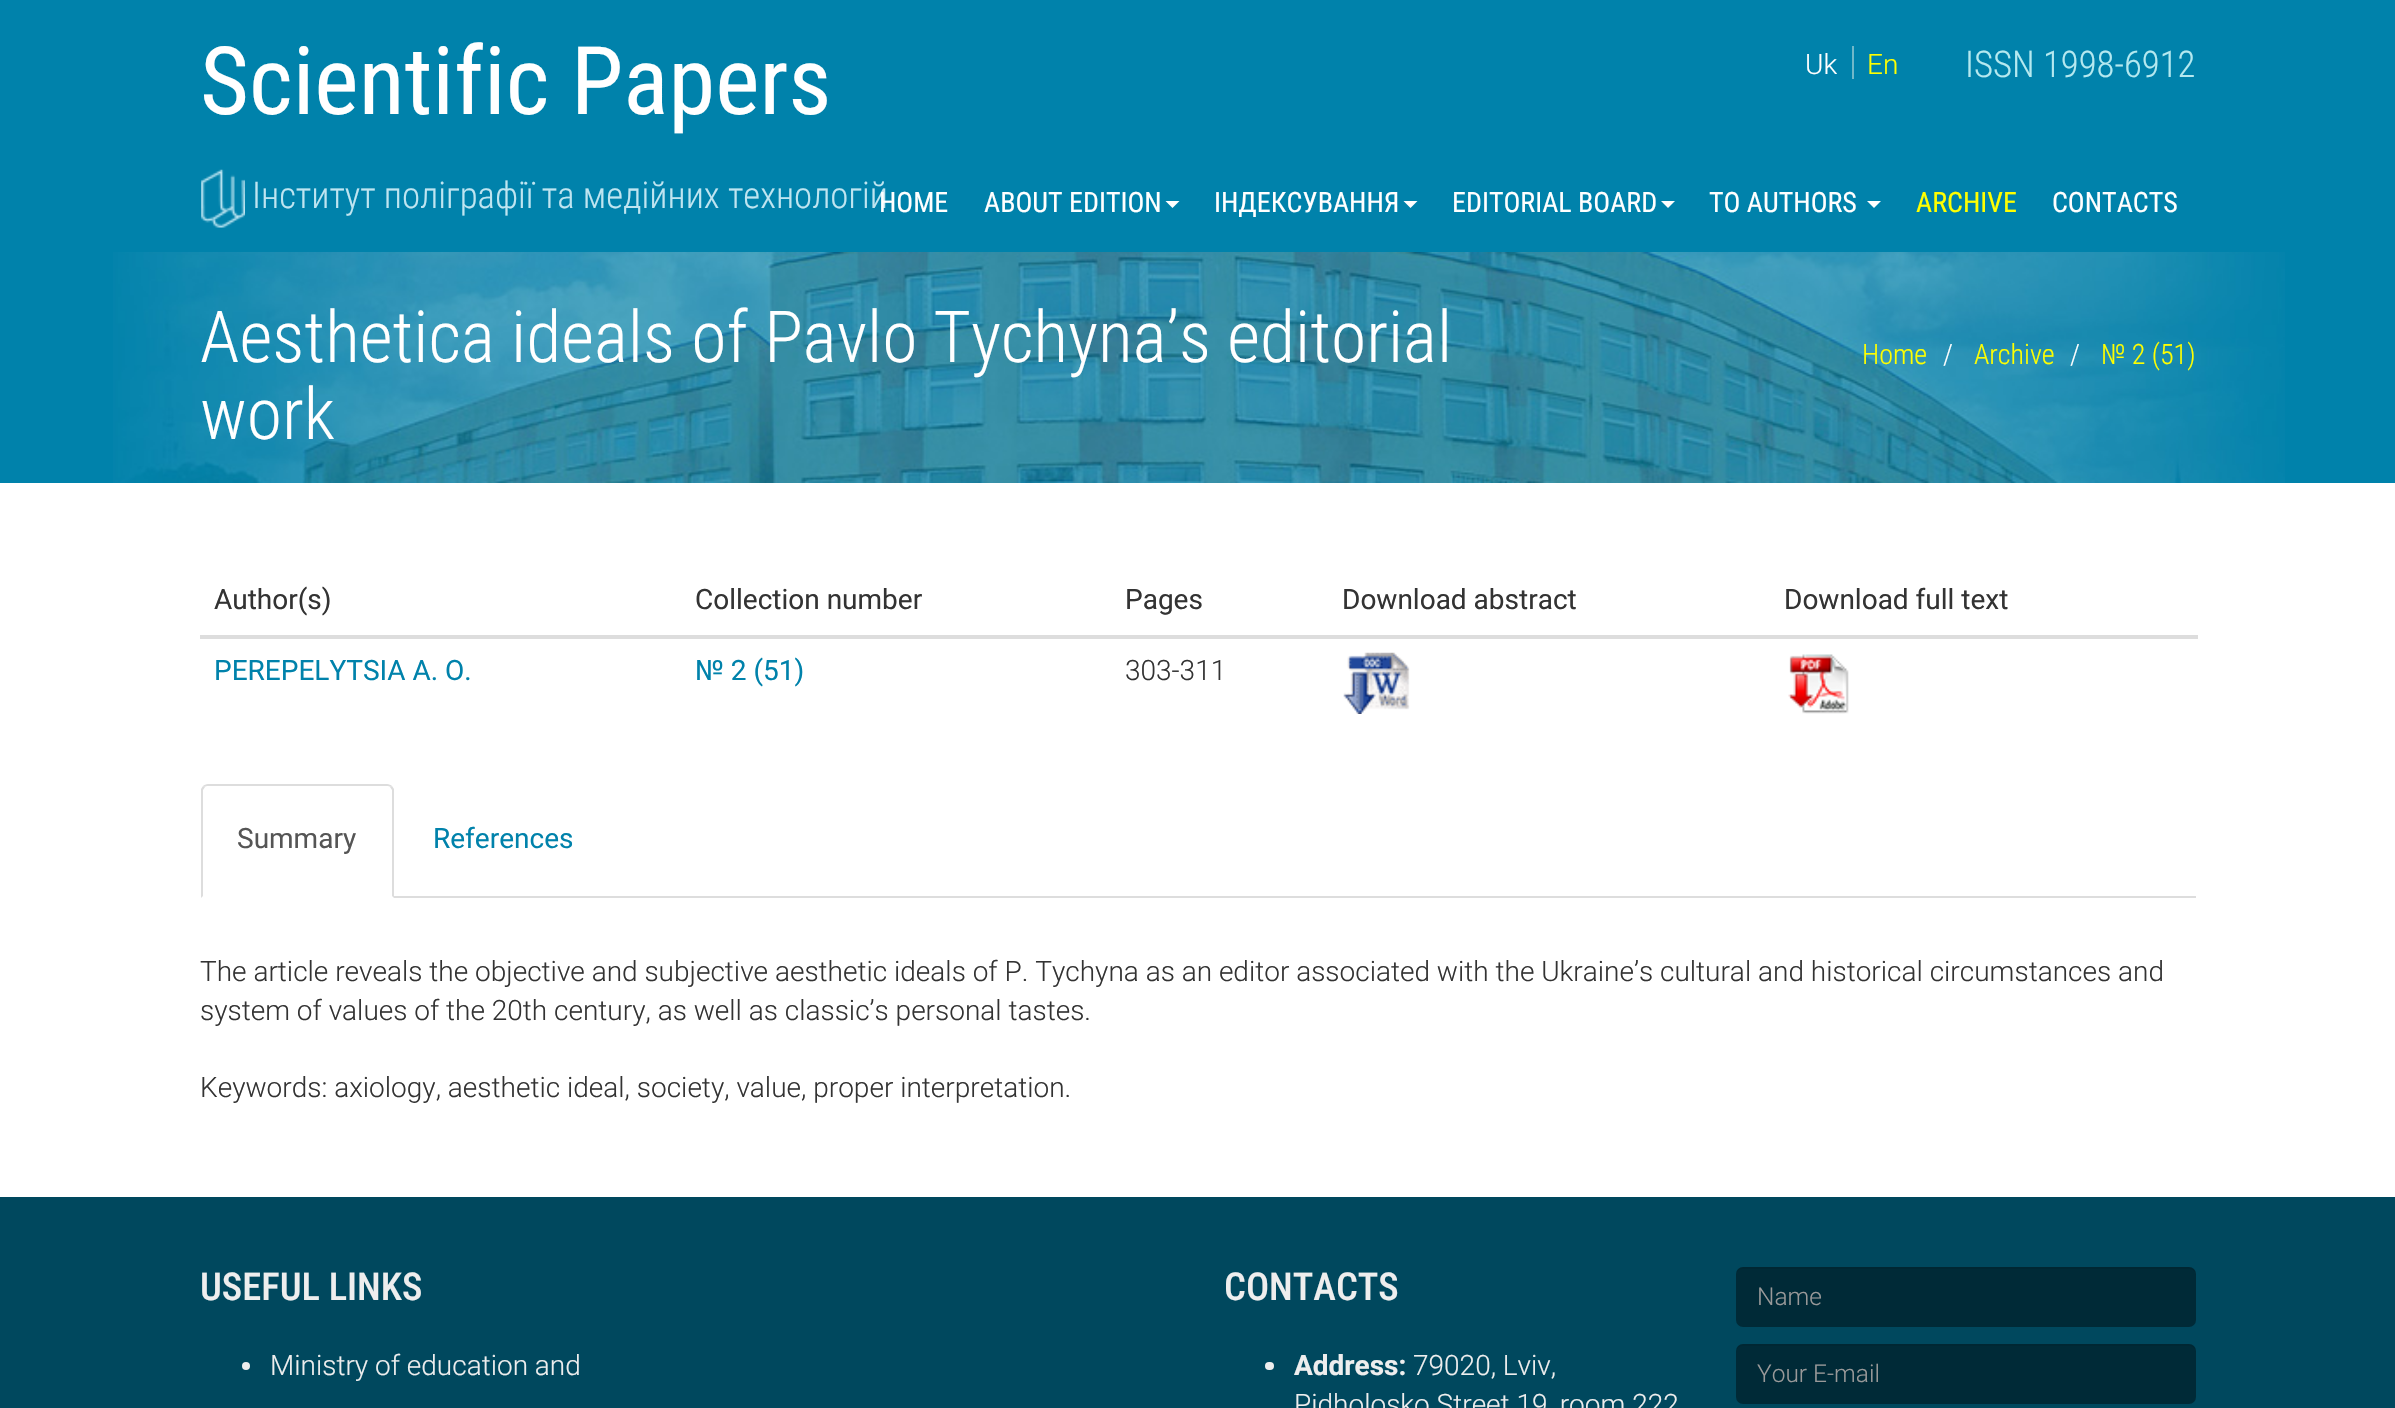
void draw(SkCanvas* canvas) {
    SkPaint paint;
    paint.setAntiAlias(true);
    auto face = [&](const char* family, int weight, float size, bool italic = false) {
        SkFontStyle style(weight, SkFontStyle::kNormal_Width,
            italic ? SkFontStyle::kItalic_Slant : SkFontStyle::kUpright_Slant);
        SkFont result(fontMgr->matchFamilyStyle(family, style), size);
        result.setSubpixel(true);
        return result;
    };
    auto write = [&](const char* s, float x, float y, const SkFont& font, SkColor color) {
        SkPaint ink(SkColor4f::FromColor(color));
        ink.setAntiAlias(true);
        canvas->drawString(s, x, y, font, ink);
    };
    auto block = [&](float x, float y, float w, float h, SkColor color) {
        SkPaint ink(SkColor4f::FromColor(color));
        ink.setAntiAlias(true);
        canvas->drawRect(SkRect::MakeXYWH(x, y, w, h), ink);
    };
    auto card = [&](float x, float y, float w, float h, float radius, SkColor color) {
        SkPaint ink(SkColor4f::FromColor(color));
        ink.setAntiAlias(true);
        canvas->drawRoundRect(SkRect::MakeXYWH(x, y, w, h), radius, radius, ink);
    };
    auto paste = [&](const char* path, float x, float y, float w, float h) {
        auto image = SkImages::DeferredFromEncodedData(SkData::MakeFromFileName(path));
        canvas->drawImageRect(image, SkRect::MakeXYWH(x, y, w, h), SkSamplingOptions());
    };
    canvas->clear(SK_ColorWHITE);
    block(0, 0, 2395, 483, SkColorSetRGB(0, 130, 171));
    auto kFont1 = face("Roboto Condensed", 400, 94.5f);
    write("Scientific Papers", 200, 114, kFont1, SK_ColorWHITE);
    paste("pic1.png", 201, 169, 44, 59);
    auto kFont2 = face("Roboto Condensed", 300, 36.75f);
    write("Інститут поліграфії та медійних технологій", 252, 208, kFont2, SkColorSetRGB(191, 229, 241));
    block(1852, 46, 2, 33, SkColorSetRGB(113, 184, 201));
    auto kFont3 = face("Roboto", 300, 28);
    write("Uk", 1805, 74, kFont3, SK_ColorWHITE);
    write("En", 1867, 74, kFont3, SkColorSetRGB(255, 255, 0));
    write("ISSN 1998-6912", 1965, 77, kFont2, SkColorSetRGB(181, 233, 240));
    auto kFont4 = face("Roboto Condensed", 400, 28);
    write("HOME", 879, 212, kFont4, SK_ColorWHITE);
    write("ABOUT EDITION", 984, 212, kFont4, SK_ColorWHITE);
    paint.setColor(SK_ColorWHITE);
    canvas->drawPath(SkPathBuilder().moveTo(1165.5f, 201).lineTo(1179.5f, 201).lineTo(1172.5f, 208).close().detach(), paint);
    write("ІНДЕКСУВАННЯ", 1214, 212, kFont4, SK_ColorWHITE);
    canvas->drawPath(SkPathBuilder().moveTo(1403.5f, 201).lineTo(1417.5f, 201).lineTo(1410.5f, 208).close().detach(), paint);
    write("EDITORIAL BOARD", 1452, 212, kFont4, SK_ColorWHITE);
    canvas->drawPath(SkPathBuilder().moveTo(1661, 201).lineTo(1675, 201).lineTo(1668, 208).close().detach(), paint);
    write("TO AUTHORS", 1709, 212, kFont4, SK_ColorWHITE);
    canvas->drawPath(SkPathBuilder().moveTo(1867, 201).lineTo(1881, 201).lineTo(1874, 208).close().detach(), paint);
    write("ARCHIVE", 1916, 212, kFont4, SkColorSetRGB(255, 255, 0));
    write("CONTACTS", 2052, 212, kFont4, SK_ColorWHITE);
    paste("pic2.png", 113, 252, 2172, 231);
    auto kFont5 = face("Roboto Condensed", 300, 71.75f);
    write("Aesthetica ideals of Pavlo Tychyna’s editorial", 200, 362, kFont5, SK_ColorWHITE);
    write("work", 200, 439, kFont5, SK_ColorWHITE);
    auto kFont6 = face("Roboto Condensed", 300, 28);
    write("Home", 1862, 364, kFont6, SkColorSetRGB(255, 255, 0));
    write("/", 1943, 364, kFont6, SK_ColorWHITE);
    write("Archive", 1974, 364, kFont6, SkColorSetRGB(255, 255, 0));
    write("/", 2070, 364, kFont6, SK_ColorWHITE);
    write("№ 2 (51)", 2101, 364, kFont6, SkColorSetRGB(255, 255, 0));
    auto kFont7 = face("Roboto", 400, 28);
    write("Author(s)", 214, 609, kFont7, SkColorSetRGB(51, 51, 51));
    write("Collection number", 695, 609, kFont7, SkColorSetRGB(51, 51, 51));
    write("Pages", 1125, 609, kFont7, SkColorSetRGB(51, 51, 51));
    write("Download abstract", 1342, 609, kFont7, SkColorSetRGB(51, 51, 51));
    block(200, 635, 1998, 4, SkColorSetRGB(221, 221, 221));
    write("Download full text", 1784, 609, kFont7, SkColorSetRGB(51, 51, 51));
    write("PEREPELYTSIA A. O.", 214, 680, kFont7, SkColorSetRGB(0, 130, 171));
    write("№ 2 (51)", 695, 680, kFont7, SkColorSetRGB(0, 130, 171));
    write("303-311", 1125, 680, kFont3, SkColorSetRGB(51, 51, 51));
    paste("pic3.png", 1343, 652, 67, 62);
    paste("pic4.png", 1788, 654, 61, 60);
    block(394, 896, 1802, 2, SkColorSetRGB(221, 221, 221));
    paint.setColor(SkColorSetRGB(221, 221, 221));
    canvas->drawPath(SkPathBuilder().moveTo(208, 784).cubicTo(206, 784, 204, 785, 203, 786).lineTo(205, 787).cubicTo(205, 786, 207, 786, 208, 786).lineTo(387, 786).cubicTo(388, 786, 390, 786, 390, 787).lineTo(392, 786).cubicTo(391, 785, 389, 784, 387, 784).close().detach(), paint);
    canvas->drawPath(SkPathBuilder().moveTo(392, 786).lineTo(394, 789).lineTo(394, 898).lineTo(392, 896).lineTo(392, 790).lineTo(390, 787).close().detach(), paint);
    canvas->drawPath(SkPathBuilder().moveTo(201, 898).lineTo(201, 789).lineTo(203, 786).lineTo(205, 787).lineTo(203, 790).lineTo(203, 896).close().detach(), paint);
    write("Summary", 237, 848, kFont7, SkColorSetRGB(85, 85, 85));
    write("References", 433, 848, kFont7, SkColorSetRGB(0, 130, 171));
    write("The article reveals the objective and subjective aesthetic ideals of P. Tychyna аs an editor associated with the Ukraine’s cultural and historical circumstances and", 200, 981, kFont3, SkColorSetRGB(51, 51, 51));
    write("system of values of the 20th century, аs well as classic’s personal tastes.", 200, 1020, kFont3, SkColorSetRGB(51, 51, 51));
    write("Keywords: axiology, aesthetic ideal, society, value, proper interpretation.", 200, 1097, kFont3, SkColorSetRGB(51, 51, 51));
    block(0, 1197, 2395, 211, SkColorSetRGB(0, 72, 94));
    auto kFont8 = face("Roboto Condensed", 500, 38.5f);
    write("USEFUL LINKS", 200, 1300, kFont8, SkColorSetRGB(238, 238, 238));
    paint.setColor(SkColorSetRGB(238, 238, 238));
    canvas->drawCircle(246, 1366, 4, paint);
    write("Ministry of education and", 270, 1375, kFont3, SkColorSetRGB(238, 238, 238));
    write("CONTACTS", 1224, 1300, kFont8, SkColorSetRGB(238, 238, 238));
    card(1265, 1362, 9, 8, 4, SkColorSetRGB(238, 238, 238));
    auto kFont9 = face("Roboto", 700, 28);
    write("Address:", 1294, 1375, kFont9, SkColorSetRGB(238, 238, 238));
    write("79020, Lviv,", 1413, 1375, kFont3, SkColorSetRGB(238, 238, 238));
    write("Pidholosko Street 19, room 222", 1294, 1414, kFont3, SkColorSetRGB(238, 238, 238));
    card(1736, 1267, 460, 60, 7, SkColorSetRGB(0, 42, 55));
    paint.setColor(SkColorSetARGB(18, 0, 0, 0));
    canvas->drawPath(SkPathBuilder().moveTo(1743, 1269).lineTo(2189, 1269).cubicTo(2193, 1269, 2196, 1272, 2196, 1276).lineTo(2196, 1274).cubicTo(2196, 1270, 2193, 1267, 2189, 1267).lineTo(1743, 1267).cubicTo(1739, 1267, 1736, 1270, 1736, 1274).lineTo(1736, 1276).cubicTo(1736, 1272, 1739, 1269, 1743, 1269).close().detach(), paint);
    auto kFont10 = face("Roboto", 300, 24.5f);
    write("Name", 1757, 1305, kFont10, SkColorSetRGB(153, 153, 153));
    card(1736, 1344, 460, 60, 7, SkColorSetRGB(0, 42, 55));
    canvas->drawPath(SkPathBuilder().moveTo(1743, 1346).lineTo(2189, 1346).cubicTo(2193, 1346, 2196, 1349, 2196, 1353).lineTo(2196, 1351).cubicTo(2196, 1347, 2193, 1344, 2189, 1344).lineTo(1743, 1344).cubicTo(1739, 1344, 1736, 1347, 1736, 1351).lineTo(1736, 1353).cubicTo(1736, 1349, 1739, 1346, 1743, 1346).close().detach(), paint);
    write("Your E-mail", 1757, 1382, kFont10, SkColorSetRGB(153, 153, 153));
}
